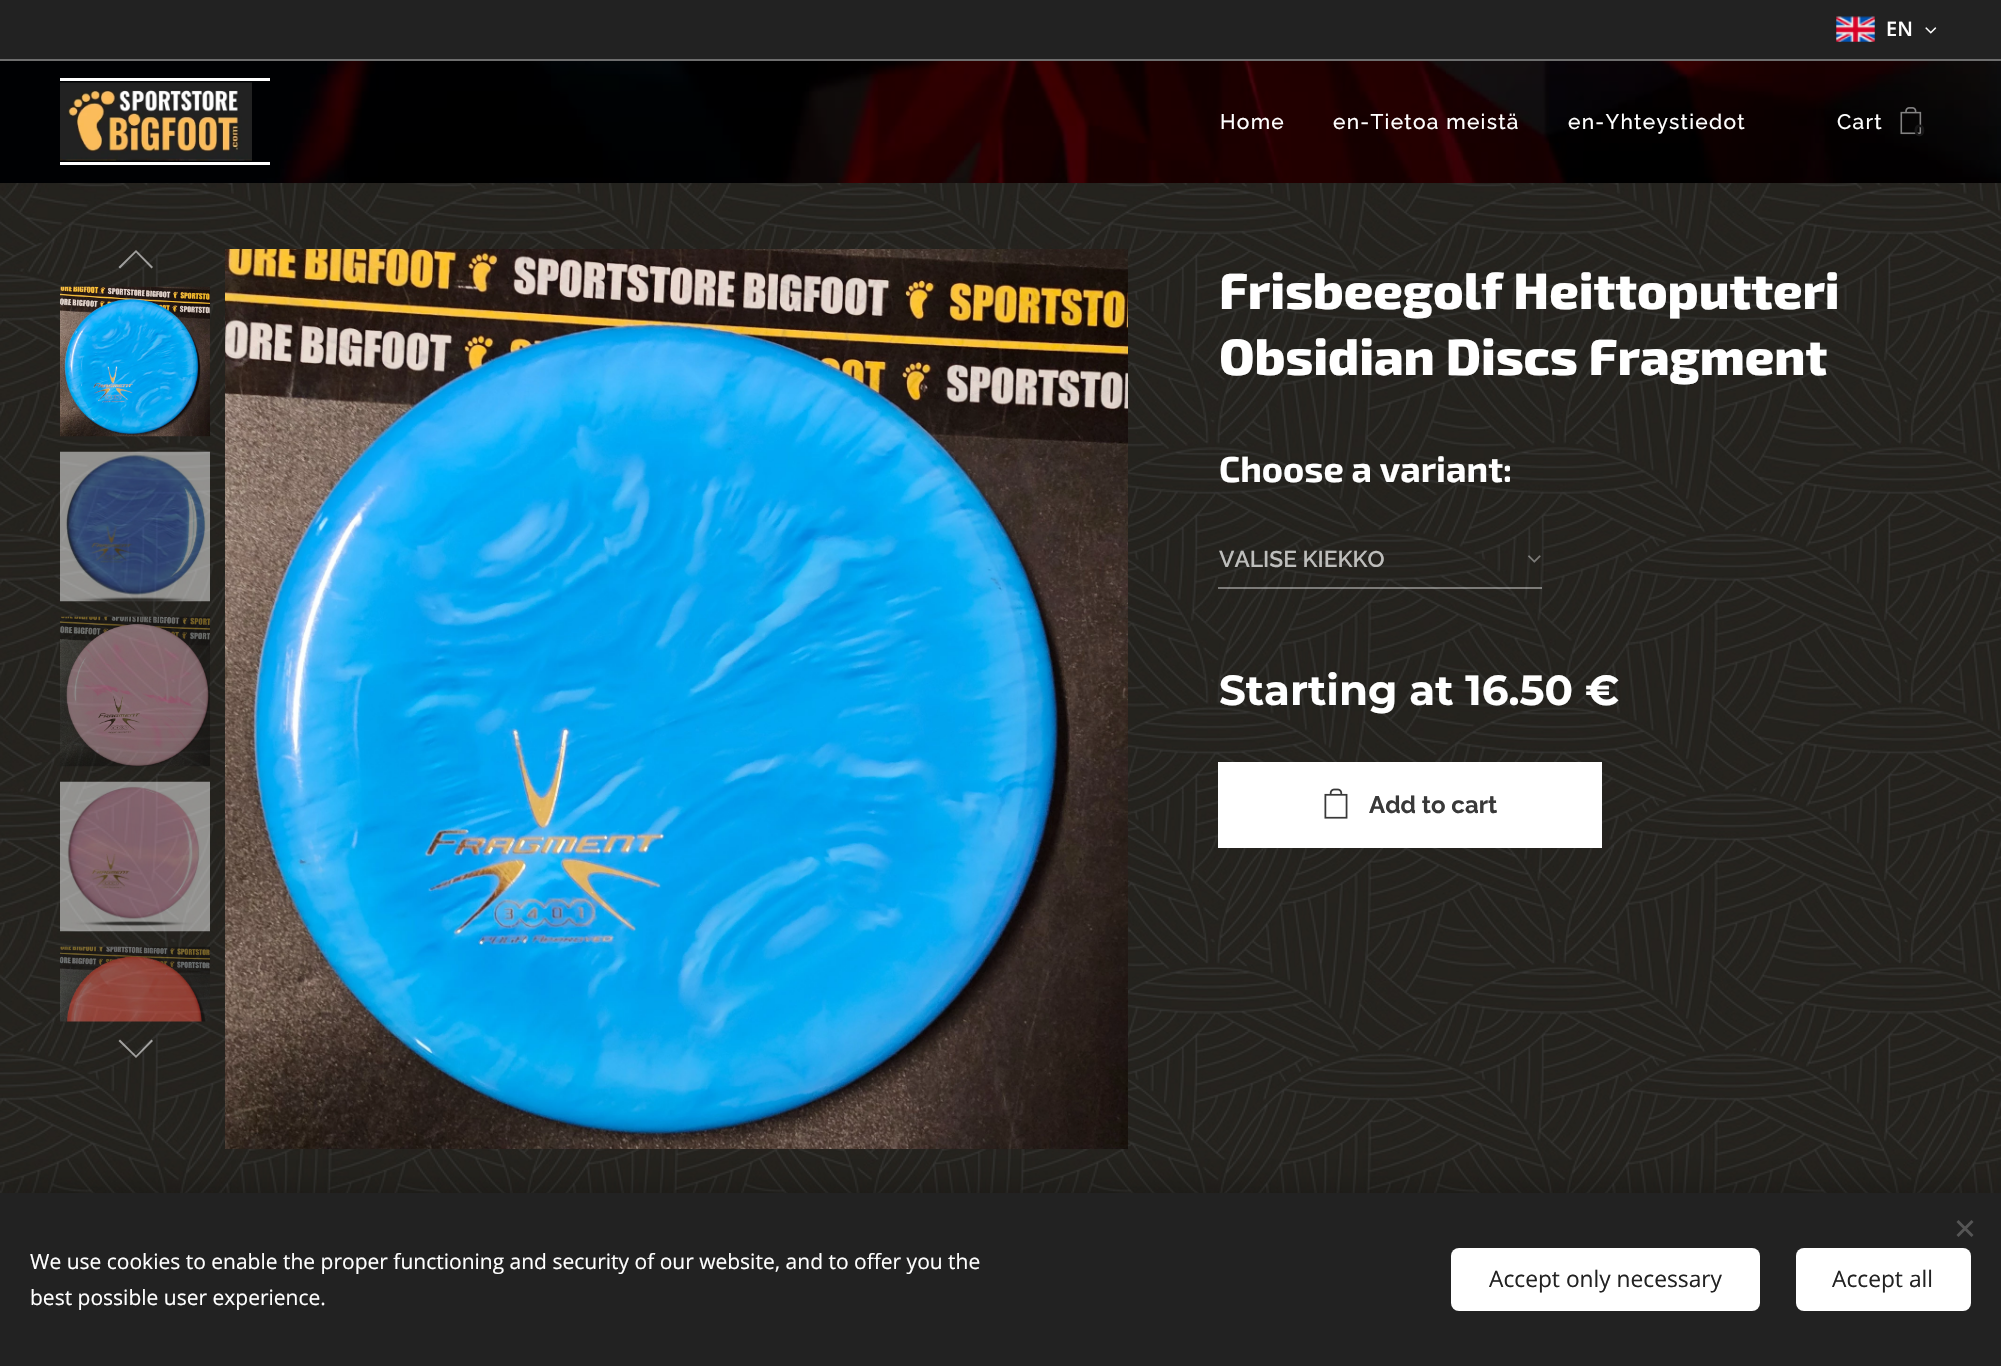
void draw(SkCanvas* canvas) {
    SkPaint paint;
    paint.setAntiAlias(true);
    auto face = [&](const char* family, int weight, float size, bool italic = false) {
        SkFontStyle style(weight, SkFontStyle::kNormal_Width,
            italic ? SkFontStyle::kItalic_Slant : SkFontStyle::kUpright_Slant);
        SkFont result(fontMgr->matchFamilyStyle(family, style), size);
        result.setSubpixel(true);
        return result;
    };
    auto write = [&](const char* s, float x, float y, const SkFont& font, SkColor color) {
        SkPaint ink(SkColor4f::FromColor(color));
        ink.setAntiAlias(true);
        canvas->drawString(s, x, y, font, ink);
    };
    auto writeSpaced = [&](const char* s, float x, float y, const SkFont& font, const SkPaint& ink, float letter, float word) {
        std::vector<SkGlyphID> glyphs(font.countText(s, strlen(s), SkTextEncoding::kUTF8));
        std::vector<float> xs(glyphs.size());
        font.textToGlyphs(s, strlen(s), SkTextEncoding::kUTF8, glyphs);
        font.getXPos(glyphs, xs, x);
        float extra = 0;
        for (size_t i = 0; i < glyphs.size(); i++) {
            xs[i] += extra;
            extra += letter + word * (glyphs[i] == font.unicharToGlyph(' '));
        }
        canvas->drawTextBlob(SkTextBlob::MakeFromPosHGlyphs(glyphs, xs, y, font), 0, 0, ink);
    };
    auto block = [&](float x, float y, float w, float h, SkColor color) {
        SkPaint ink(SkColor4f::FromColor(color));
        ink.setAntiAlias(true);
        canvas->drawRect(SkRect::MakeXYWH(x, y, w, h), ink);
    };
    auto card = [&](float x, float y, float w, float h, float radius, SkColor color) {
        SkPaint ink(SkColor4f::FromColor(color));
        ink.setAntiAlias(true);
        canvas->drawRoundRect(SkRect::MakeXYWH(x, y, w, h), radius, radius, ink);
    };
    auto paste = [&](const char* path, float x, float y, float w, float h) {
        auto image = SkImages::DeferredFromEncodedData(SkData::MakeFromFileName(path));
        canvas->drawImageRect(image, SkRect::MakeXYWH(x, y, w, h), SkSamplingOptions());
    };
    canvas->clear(SK_ColorWHITE);
    block(0, 0, 2001, 59, SkColorSetRGB(34, 34, 34));
    paste("pic1.png", 1836, 16, 39, 26);
    auto kFont1 = face("Open Sans", 600, 20);
    write("EN", 1886, 36, kFont1, SK_ColorWHITE);
    paste("pic2.png", 1925, 27, 12, 7);
    block(0, 59, 2001, 2, SkColorSetRGB(110, 110, 110));
    paste("pic3.png", 0, 61, 2001, 122);
    block(60, 78, 210, 3, SK_ColorWHITE);
    block(60, 162, 210, 3, SK_ColorWHITE);
    paste("pic4.png", 60, 82, 192, 79);
    auto kFont2 = face("Raleway", 500, 21);
    paint.setColor(SK_ColorWHITE);
    writeSpaced("Home", 1220, 129, kFont2, paint, 1.25f, 0);
    writeSpaced("en-Tietoa meistä", 1333, 129, kFont2, paint, 1.25f, 0);
    writeSpaced("en-Yhteystiedot", 1568, 129, kFont2, paint, 1.25f, 0);
    writeSpaced("Cart", 1837, 129, kFont2, paint, 1.25f, 0);
    paste("pic5.png", 1900, 107, 22, 28);
    auto kFont3 = face("Montserrat", 700, 16);
    write("0", 1914, 136, kFont3, SkColorSetRGB(24, 23, 24));
    paste("pic6.png", 0, 183, 2001, 1010);
    paint.setColor(SkColorSetARGB(143, 255, 255, 255));
    canvas->drawPath(SkPathBuilder().moveTo(118.5f, 267).lineTo(120, 268.5f).lineTo(136, 252.5f).lineTo(151.5f, 268.5f).lineTo(153, 267).lineTo(136, 250).close().detach(), paint);
    paste("pic7.png", 60, 286, 150, 151);
    paste("pic8.png", 60, 451, 150, 151);
    paste("pic9.png", 60, 616, 150, 151);
    paste("pic10.png", 60, 781, 150, 151);
    paste("pic11.png", 60, 946, 150, 76);
    canvas->drawPath(SkPathBuilder().moveTo(153, 1041).lineTo(151.5f, 1039.5f).lineTo(136, 1055.5f).lineTo(120, 1039.5f).lineTo(118.5f, 1041).lineTo(136, 1058).close().detach(), paint);
    paste("pic12.png", 225, 249, 903, 900);
    auto kFont4 = face("Exo 2", 800, 51);
    write("Frisbeegolf Heittoputteri", 1219, 309, kFont4, SK_ColorWHITE);
    write("Obsidian Discs Fragment", 1219, 375, kFont4, SK_ColorWHITE);
    auto kFont5 = face("Exo 2", 700, 36);
    write("Choose a variant:", 1219, 482, kFont5, SK_ColorWHITE);
    auto kFont6 = face("Raleway", 600, 22.75f);
    write("VALISE KIEKKO", 1219, 567, kFont6, SkColorSetRGB(190, 190, 188));
    paste("pic13.png", 1528, 555, 13, 8);
    block(1218, 587, 324, 2, SkColorSetARGB(102, 255, 255, 255));
    auto kFont7 = face("Montserrat", 700, 42);
    write("Starting at 16.50 €", 1219, 705, kFont7, SK_ColorWHITE);
    block(1218, 762, 384, 86, SK_ColorWHITE);
    paste("pic14.png", 1324, 788, 24, 31);
    auto kFont8 = face("Raleway", 700, 24);
    write("Add to cart", 1369, 813, kFont8, SkColorSetRGB(57, 57, 57));
    paint.setColor(SkColorSetARGB(84, 0, 0, 0));
    paint.setMaskFilter(SkMaskFilter::MakeBlur(kNormal_SkBlurStyle, 19));
    canvas->drawRect(SkRect::MakeXYWH(0, 1193, 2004, 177), paint);
    paint.setMaskFilter(nullptr);
    block(0, 1193, 2001, 173, SkColorSetRGB(34, 34, 34));
    paint.setColor(SkColorSetRGB(85, 85, 85));
    canvas->drawPath(SkPathBuilder().moveTo(1956.5f, 1235).lineTo(1971.5f, 1220).lineTo(1973.5f, 1222).lineTo(1958.5f, 1237).close().detach(), paint);
    canvas->drawPath(SkPathBuilder().moveTo(1958.5f, 1220).lineTo(1973.5f, 1235).lineTo(1971.5f, 1237).lineTo(1956.5f, 1222).close().detach(), paint);
    auto kFont9 = face("Open Sans", 400, 21);
    write("We use cookies to enable the proper functioning and security of our website, and to offer you the", 30, 1269, kFont9, SK_ColorWHITE);
    write("best possible user experience.", 30, 1305, kFont9, SK_ColorWHITE);
    card(1451, 1248, 309, 63, 8, SK_ColorWHITE);
    auto kFont10 = face("Open Sans", 400, 22.75f);
    write("Accept only necessary", 1489, 1287, kFont10, SkColorSetRGB(34, 34, 34));
    card(1796, 1248, 175, 63, 8, SK_ColorWHITE);
    write("Accept all", 1832, 1287, kFont10, SkColorSetRGB(34, 34, 34));
}
